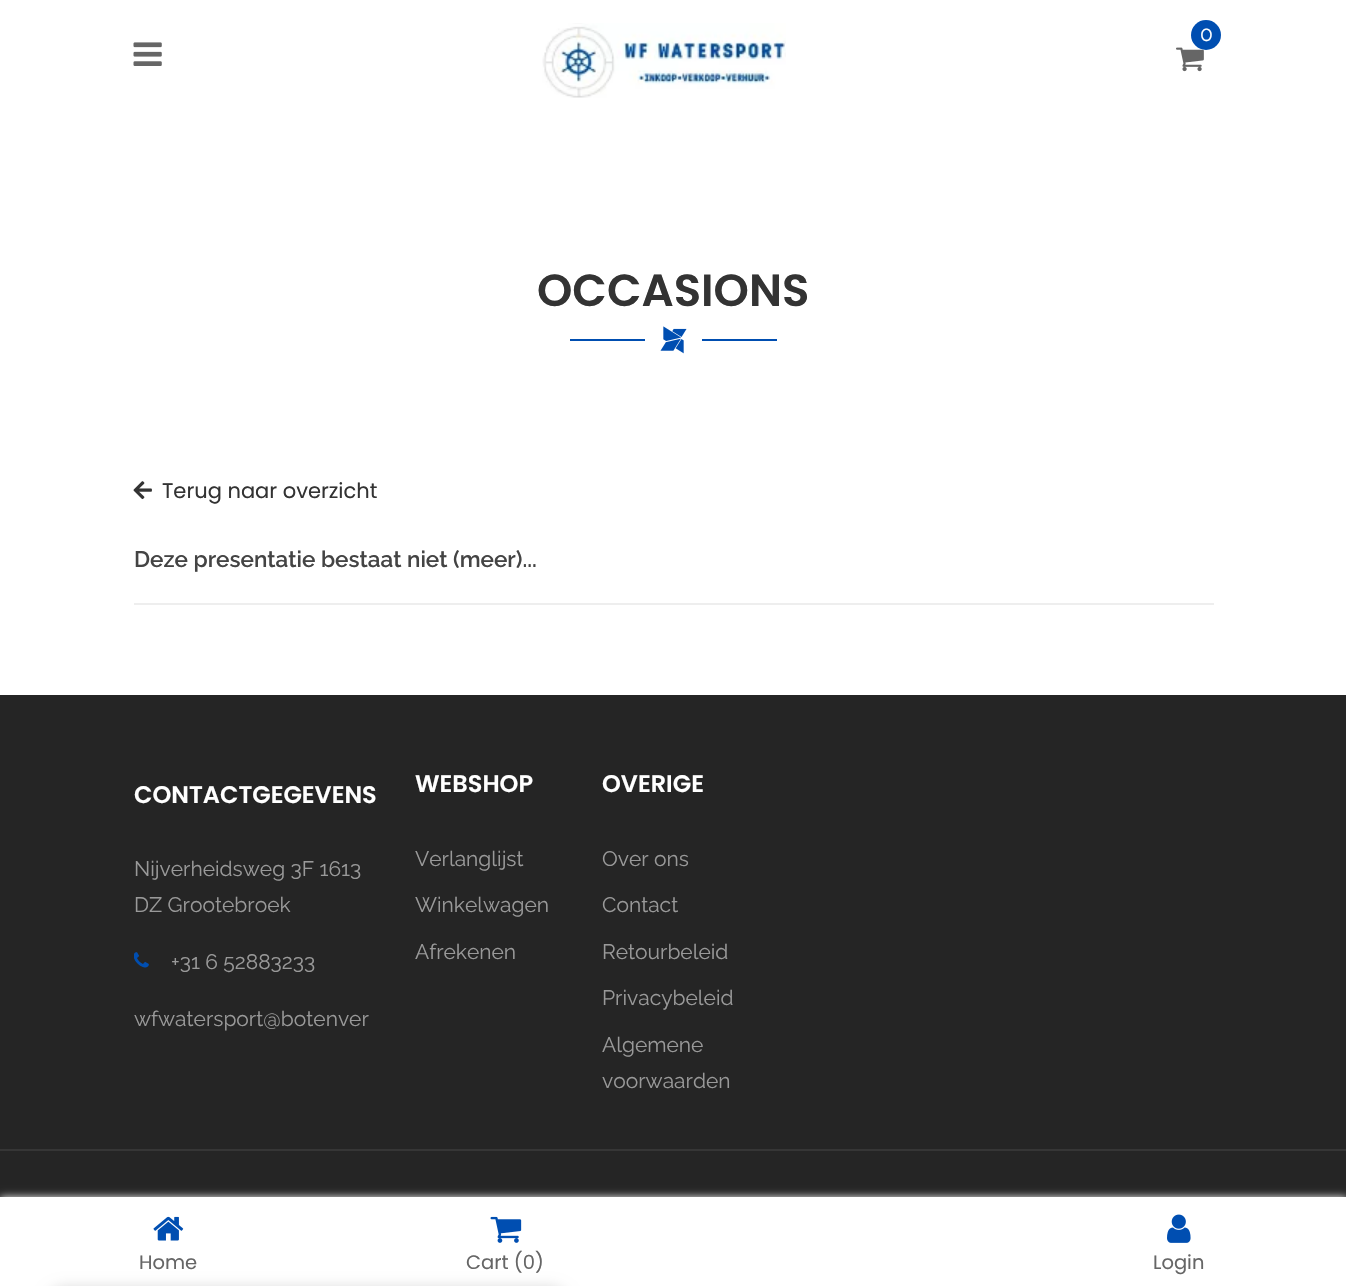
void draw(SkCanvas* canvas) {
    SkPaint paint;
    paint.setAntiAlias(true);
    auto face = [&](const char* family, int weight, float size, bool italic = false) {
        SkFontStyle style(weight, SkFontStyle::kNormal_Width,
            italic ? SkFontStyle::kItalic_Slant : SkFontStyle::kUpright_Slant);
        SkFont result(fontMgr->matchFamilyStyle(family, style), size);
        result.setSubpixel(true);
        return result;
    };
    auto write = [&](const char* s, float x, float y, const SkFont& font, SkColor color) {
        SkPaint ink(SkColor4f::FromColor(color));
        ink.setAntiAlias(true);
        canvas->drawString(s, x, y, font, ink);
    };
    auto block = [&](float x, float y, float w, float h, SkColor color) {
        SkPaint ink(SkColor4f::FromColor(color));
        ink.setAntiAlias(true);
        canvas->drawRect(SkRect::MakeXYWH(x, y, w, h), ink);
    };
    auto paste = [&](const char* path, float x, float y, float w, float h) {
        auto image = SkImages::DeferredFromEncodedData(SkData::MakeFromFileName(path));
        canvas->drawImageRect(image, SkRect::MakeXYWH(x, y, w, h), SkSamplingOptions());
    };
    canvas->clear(SK_ColorWHITE);
    paste("pic1.png", 542, 23, 244, 75);
    paste("pic2.png", 1176, 47, 28, 25);
    paint.setColor(SkColorSetRGB(0, 78, 177));
    canvas->drawCircle(1206, 35, 15, paint);
    auto kFont1 = face("Raleway", 400, 21);
    write("0", 1200, 41, kFont1, SK_ColorWHITE);
    paste("pic3.png", 133, 42, 29, 24);
    auto kFont2 = face("Poppins", 600, 45);
    write("OCCASIONS", 537, 306, kFont2, SkColorSetRGB(51, 51, 51));
    block(570, 339, 75, 2, SkColorSetRGB(0, 78, 177));
    paste("pic4.png", 660, 326, 27, 28);
    block(702, 339, 75, 2, SkColorSetRGB(0, 78, 177));
    paste("pic5.png", 133, 481, 19, 19);
    auto kFont3 = face("Poppins", 400, 21);
    write("Terug naar overzicht", 162, 498, kFont3, SkColorSetRGB(51, 51, 51));
    block(134, 603, 1080, 2, SkColorSetRGB(238, 238, 238));
    auto kFont4 = face("Raleway", 600, 22.5f);
    write("Deze presentatie bestaat niet (meer)...", 134, 567, kFont4, SkColorSetRGB(68, 68, 68));
    block(0, 695, 1346, 502, SkColorSetRGB(37, 37, 37));
    block(0, 1149, 1346, 2, SkColorSetRGB(54, 54, 54));
    auto kFont5 = face("Poppins", 600, 24);
    write("CONTACTGEGEVENS", 134, 803, kFont5, SK_ColorWHITE);
    write("Nijverheidsweg 3F 1613", 134, 876, kFont1, SkColorSetRGB(153, 153, 153));
    write("DZ Grootebroek", 134, 912, kFont1, SkColorSetRGB(153, 153, 153));
    paste("pic6.png", 134, 952, 15, 16);
    write("+31 6 52883233", 171, 969, kFont1, SkColorSetRGB(153, 153, 153));
    write("wfwatersport@botenver", 134, 1026, kFont1, SkColorSetRGB(153, 153, 153));
    write("WEBSHOP", 415, 792, kFont5, SK_ColorWHITE);
    write("Verlanglijst", 415, 866, kFont1, SkColorSetRGB(153, 153, 153));
    write("Winkelwagen", 415, 912, kFont1, SkColorSetRGB(153, 153, 153));
    write("Afrekenen", 415, 959, kFont1, SkColorSetRGB(153, 153, 153));
    write("OVERIGE", 602, 792, kFont5, SK_ColorWHITE);
    write("Over ons", 602, 866, kFont1, SkColorSetRGB(153, 153, 153));
    write("Contact", 602, 912, kFont1, SkColorSetRGB(153, 153, 153));
    write("Retourbeleid", 602, 959, kFont1, SkColorSetRGB(153, 153, 153));
    write("Privacybeleid", 602, 1005, kFont1, SkColorSetRGB(153, 153, 153));
    write("Algemene", 602, 1052, kFont1, SkColorSetRGB(153, 153, 153));
    write("voorwaarden", 602, 1088, kFont1, SkColorSetRGB(153, 153, 153));
    paint.setColor(SkColorSetRGB(241, 241, 241));
    paint.setMaskFilter(SkMaskFilter::MakeBlur(kNormal_SkBlurStyle, 4));
    canvas->drawRect(SkRect::MakeXYWH(0, 1197, 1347, 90), paint);
    paint.setMaskFilter(nullptr);
    block(0, 1197, 1346, 89, SK_ColorWHITE);
    paste("pic7.png", 153, 1216, 31, 25);
    auto kFont6 = face("Poppins", 400, 19.5f);
    write("Home", 139, 1269, kFont6, SkColorSetRGB(102, 102, 102));
    paste("pic8.png", 490, 1216, 32, 27);
    write("Cart (0)", 466, 1269, kFont6, SkColorSetRGB(102, 102, 102));
    paste("pic9.png", 1167, 1214, 24, 29);
    write("Login", 1153, 1269, kFont6, SkColorSetRGB(102, 102, 102));
    paint.setColor(SkColorSetARGB(36, 0, 0, 0));
    paint.setMaskFilter(SkMaskFilter::MakeBlur(kNormal_SkBlurStyle, 7));
    canvas->drawRoundRect(SkRect::MakeXYWH(45, 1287, 525, 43), 23, 23, paint);
    paint.setMaskFilter(nullptr);
}
